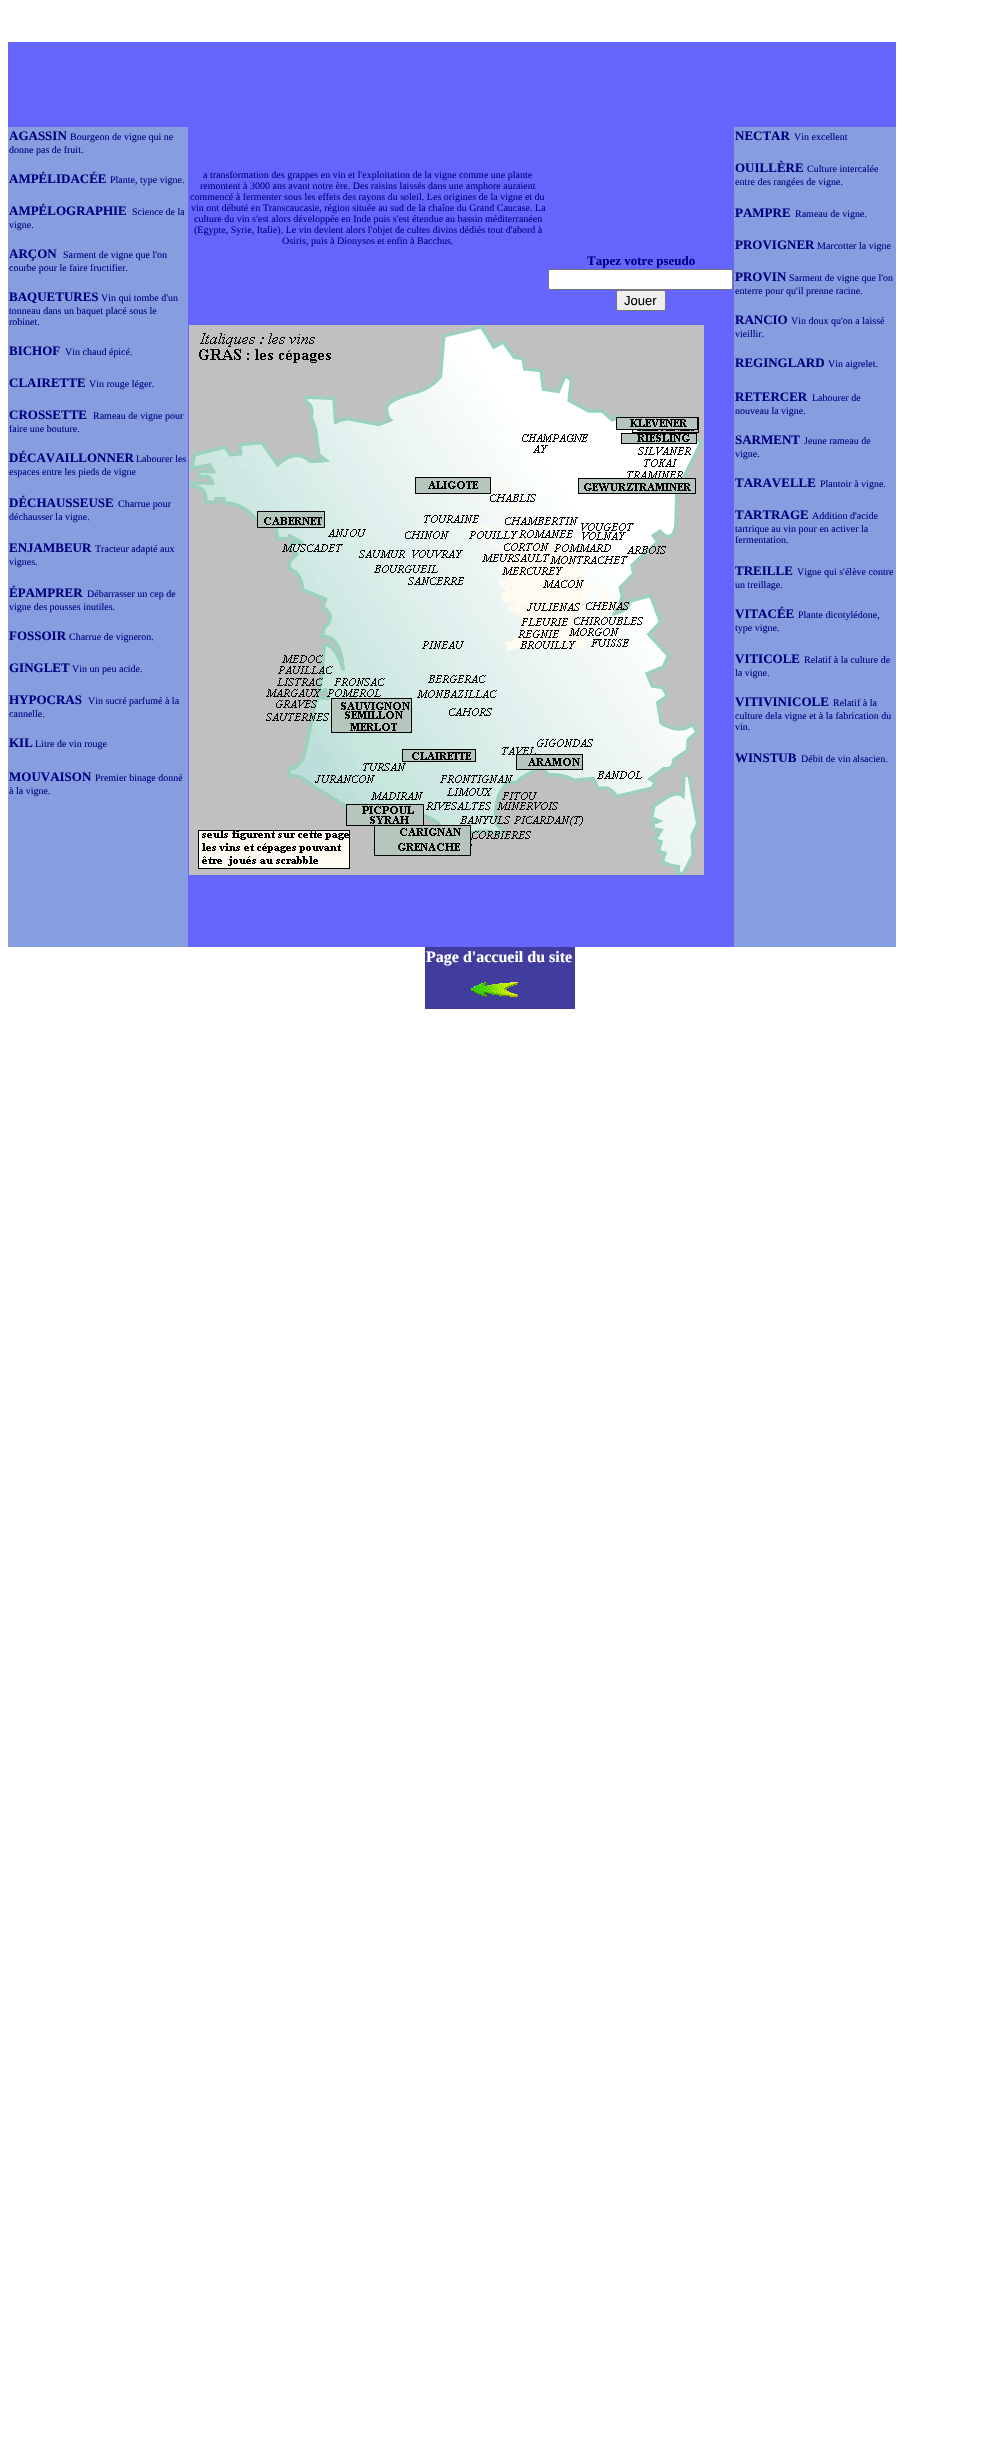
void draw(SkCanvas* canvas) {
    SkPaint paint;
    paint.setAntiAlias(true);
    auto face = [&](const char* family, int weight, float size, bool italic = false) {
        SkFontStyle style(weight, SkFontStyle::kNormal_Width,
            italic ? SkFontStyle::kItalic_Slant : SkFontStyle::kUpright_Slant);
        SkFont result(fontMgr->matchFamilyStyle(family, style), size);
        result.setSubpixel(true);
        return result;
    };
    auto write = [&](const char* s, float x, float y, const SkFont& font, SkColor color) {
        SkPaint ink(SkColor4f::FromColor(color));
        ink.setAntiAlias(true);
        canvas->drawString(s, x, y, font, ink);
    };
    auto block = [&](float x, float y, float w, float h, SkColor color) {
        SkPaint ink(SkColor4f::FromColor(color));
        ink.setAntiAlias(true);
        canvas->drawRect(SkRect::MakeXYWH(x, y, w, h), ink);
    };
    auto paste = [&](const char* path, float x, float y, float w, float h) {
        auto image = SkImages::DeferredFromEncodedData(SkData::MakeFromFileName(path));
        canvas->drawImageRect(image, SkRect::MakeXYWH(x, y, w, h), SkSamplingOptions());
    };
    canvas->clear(SK_ColorWHITE);
    block(8, 42, 888, 905, SkColorSetRGB(102, 102, 255));
    block(8, 127, 180, 820, SkColorSetRGB(134, 158, 223));
    auto kFont1 = face("Liberation Serif", 700, 13);
    write("AGASSIN", 9, 140, kFont1, SkColorSetRGB(0, 0, 128));
    auto kFont2 = face("Liberation Serif", 400, 10);
    write("Bourgeon de vigne qui ne", 70, 140, kFont2, SkColorSetRGB(0, 0, 128));
    write("donne pas de fruit.", 9, 153, kFont2, SkColorSetRGB(0, 0, 128));
    write("AMPÉLIDACÉE", 9, 183, kFont1, SkColorSetRGB(0, 0, 128));
    write("Plante, type vigne.", 110, 183, kFont2, SkColorSetRGB(0, 0, 128));
    write("AMPÉLOGRAPHIE", 9, 215, kFont1, SkColorSetRGB(0, 0, 128));
    write("Science de la", 132, 215, kFont2, SkColorSetRGB(0, 0, 128));
    write("vigne.", 9, 228, kFont2, SkColorSetRGB(0, 0, 128));
    write("ARÇON", 9, 258, kFont1, SkColorSetRGB(0, 0, 128));
    write("Sarment de vigne que l'on", 63, 258, kFont2, SkColorSetRGB(0, 0, 128));
    write("courbe pour le faire fructifier.", 9, 271, kFont2, SkColorSetRGB(0, 0, 128));
    write("BAQUETURES", 9, 301, kFont1, SkColorSetRGB(0, 0, 128));
    write("Vin qui tombe d'un", 101, 301, kFont2, SkColorSetRGB(0, 0, 128));
    write("tonneau dans un baquet placé sous le", 9, 314, kFont2, SkColorSetRGB(0, 0, 128));
    write("robinet.", 9, 325, kFont2, SkColorSetRGB(0, 0, 128));
    write("BICHOF", 9, 355, kFont1, SkColorSetRGB(0, 0, 128));
    write("Vin chaud épicé.", 65, 355, kFont2, SkColorSetRGB(0, 0, 128));
    write("CLAIRETTE", 9, 387, kFont1, SkColorSetRGB(0, 0, 128));
    write("Vin rouge léger.", 89, 387, kFont2, SkColorSetRGB(0, 0, 128));
    write("CROSSETTE", 9, 419, kFont1, SkColorSetRGB(0, 0, 128));
    write("Rameau de vigne pour", 93, 419, kFont2, SkColorSetRGB(0, 0, 128));
    write("faire une bouture.", 9, 432, kFont2, SkColorSetRGB(0, 0, 128));
    write("DÉCAVAILLONNER", 9, 462, kFont1, SkColorSetRGB(0, 0, 128));
    write("Labourer les", 136, 462, kFont2, SkColorSetRGB(0, 0, 128));
    write("espaces entre les pieds de vigne", 9, 475, kFont2, SkColorSetRGB(0, 0, 128));
    write("DÉCHAUSSEUSE", 9, 507, kFont1, SkColorSetRGB(0, 0, 128));
    write("Charrue pour", 118, 507, kFont2, SkColorSetRGB(0, 0, 128));
    write("déchausser la vigne.", 9, 520, kFont2, SkColorSetRGB(0, 0, 128));
    write("ENJAMBEUR", 9, 552, kFont1, SkColorSetRGB(0, 0, 128));
    write("Tracteur adapté aux", 95, 552, kFont2, SkColorSetRGB(0, 0, 128));
    write("vignes.", 9, 565, kFont2, SkColorSetRGB(0, 0, 128));
    write("ÉPAMPRER", 9, 597, kFont1, SkColorSetRGB(0, 0, 128));
    write("Débarrasser un cep de", 87, 597, kFont2, SkColorSetRGB(0, 0, 128));
    write("vigne des pousses inutiles.", 9, 610, kFont2, SkColorSetRGB(0, 0, 128));
    write("FOSSOIR", 9, 640, kFont1, SkColorSetRGB(0, 0, 128));
    write("Charrue de vigneron.", 69, 640, kFont2, SkColorSetRGB(0, 0, 128));
    write("GINGLET", 9, 672, kFont1, SkColorSetRGB(0, 0, 128));
    write("Vin un peu acide.", 72, 672, kFont2, SkColorSetRGB(0, 0, 128));
    write("HYPOCRAS", 9, 704, kFont1, SkColorSetRGB(0, 0, 128));
    write("Vin sucré parfumé à la", 88, 704, kFont2, SkColorSetRGB(0, 0, 128));
    write("cannelle.", 9, 717, kFont2, SkColorSetRGB(0, 0, 128));
    write("KIL", 9, 747, kFont1, SkColorSetRGB(0, 0, 128));
    write("Litre de vin rouge", 35, 747, kFont2, SkColorSetRGB(0, 0, 128));
    write("MOUVAISON", 9, 781, kFont1, SkColorSetRGB(0, 0, 128));
    write("Premier binage donné", 95, 781, kFont2, SkColorSetRGB(0, 0, 128));
    write("à la vigne.", 9, 794, kFont2, SkColorSetRGB(0, 0, 128));
    write("Tapez votre pseudo", 587, 265, kFont1, SkColorSetRGB(0, 0, 128));
    paint.setColor(SK_ColorWHITE);
    canvas->drawRoundRect(SkRect::MakeXYWH(548.5f, 269.5f, 184, 20), 1.5f, 1.5f, paint);
    paint.setStyle(SkPaint::kStroke_Style);
    paint.setStrokeWidth(1);
    paint.setColor(SkColorSetRGB(118, 118, 118));
    canvas->drawRoundRect(SkRect::MakeXYWH(548.5f, 269.5f, 184, 20), 1.5f, 1.5f, paint);
    paint.setStyle(SkPaint::kFill_Style);
    paint.setColor(SkColorSetRGB(239, 239, 239));
    canvas->drawRoundRect(SkRect::MakeXYWH(616.5f, 290.5f, 49, 20), 1.5f, 1.5f, paint);
    paint.setStyle(SkPaint::kStroke_Style);
    paint.setColor(SkColorSetRGB(118, 118, 118));
    canvas->drawRoundRect(SkRect::MakeXYWH(616.5f, 290.5f, 49, 20), 1.5f, 1.5f, paint);
    auto kFont3 = face("Liberation Sans", 400, 13);
    write("Jouer", 624, 305, kFont3, SK_ColorBLACK);
    block(734, 127, 162, 820, SkColorSetRGB(134, 158, 223));
    write("NECTAR", 735, 140, kFont1, SkColorSetRGB(0, 0, 128));
    write("Vin excellent", 794, 140, kFont2, SkColorSetRGB(0, 0, 128));
    write("OUILLÈRE", 735, 172, kFont1, SkColorSetRGB(0, 0, 128));
    write("Culture intercalée", 807, 172, kFont2, SkColorSetRGB(0, 0, 128));
    write("entre des rangées de vigne.", 735, 185, kFont2, SkColorSetRGB(0, 0, 128));
    write("PAMPRE", 735, 217, kFont1, SkColorSetRGB(0, 0, 128));
    write("Rameau de vigne.", 795, 217, kFont2, SkColorSetRGB(0, 0, 128));
    write("PROVIGNER", 735, 249, kFont1, SkColorSetRGB(0, 0, 128));
    write("Marcotter la vigne", 817, 249, kFont2, SkColorSetRGB(0, 0, 128));
    write("PROVIN", 735, 281, kFont1, SkColorSetRGB(0, 0, 128));
    write("Sarment de vigne que l'on", 789, 281, kFont2, SkColorSetRGB(0, 0, 128));
    write("enterre pour qu'il prenne racine.", 735, 294, kFont2, SkColorSetRGB(0, 0, 128));
    write("RANCIO", 735, 324, kFont1, SkColorSetRGB(0, 0, 128));
    write("Vin doux qu'on a laissé", 791, 324, kFont2, SkColorSetRGB(0, 0, 128));
    write("vieillir.", 735, 337, kFont2, SkColorSetRGB(0, 0, 128));
    write("REGINGLARD", 735, 367, kFont1, SkColorSetRGB(0, 0, 128));
    write("Vin aigrelet.", 828, 367, kFont2, SkColorSetRGB(0, 0, 128));
    write("RETERCER", 735, 401, kFont1, SkColorSetRGB(0, 0, 128));
    write("Labourer de", 812, 401, kFont2, SkColorSetRGB(0, 0, 128));
    write("nouveau la vigne.", 735, 414, kFont2, SkColorSetRGB(0, 0, 128));
    write("SARMENT", 735, 444, kFont1, SkColorSetRGB(0, 0, 128));
    write("Jeune rameau de", 804, 444, kFont2, SkColorSetRGB(0, 0, 128));
    write("vigne.", 735, 457, kFont2, SkColorSetRGB(0, 0, 128));
    write("TARAVELLE", 735, 487, kFont1, SkColorSetRGB(0, 0, 128));
    write("Plantoir à vigne.", 820, 487, kFont2, SkColorSetRGB(0, 0, 128));
    write("TARTRAGE", 735, 519, kFont1, SkColorSetRGB(0, 0, 128));
    write("Addition d'acide", 812, 519, kFont2, SkColorSetRGB(0, 0, 128));
    write("tartrique au vin pour en activer la", 735, 532, kFont2, SkColorSetRGB(0, 0, 128));
    write("fermentation.", 735, 543, kFont2, SkColorSetRGB(0, 0, 128));
    write("TREILLE", 735, 575, kFont1, SkColorSetRGB(0, 0, 128));
    write("Vigne qui s'élève contre", 797, 575, kFont2, SkColorSetRGB(0, 0, 128));
    write("un treillage.", 735, 588, kFont2, SkColorSetRGB(0, 0, 128));
    write("VITACÉE", 735, 618, kFont1, SkColorSetRGB(0, 0, 128));
    write("Plante dicotylédone,", 798, 618, kFont2, SkColorSetRGB(0, 0, 128));
    write("type vigne.", 735, 631, kFont2, SkColorSetRGB(0, 0, 128));
    write("VITICOLE", 735, 663, kFont1, SkColorSetRGB(0, 0, 128));
    write("Relatif à la culture de", 804, 663, kFont2, SkColorSetRGB(0, 0, 128));
    write("la vigne.", 735, 676, kFont2, SkColorSetRGB(0, 0, 128));
    write("VITIVINICOLE", 735, 706, kFont1, SkColorSetRGB(0, 0, 128));
    write("Relatif à la", 833, 706, kFont2, SkColorSetRGB(0, 0, 128));
    write("culture dela vigne et à la fabrication du", 735, 719, kFont2, SkColorSetRGB(0, 0, 128));
    write("vin.", 735, 730, kFont2, SkColorSetRGB(0, 0, 128));
    write("WINSTUB", 735, 762, kFont1, SkColorSetRGB(0, 0, 128));
    write("Débit de vin alsacien.", 801, 762, kFont2, SkColorSetRGB(0, 0, 128));
    write("a transformation des grappes en vin et l'exploitation de la vigne comme une plante", 203, 178, kFont2, SkColorSetRGB(0, 0, 128));
    write("remontent à 3000 ans avant notre ère. Des raisins laissés dans une amphore auraient", 200, 189, kFont2, SkColorSetRGB(0, 0, 128));
    write("commencé à fermenter sous les effets des rayons du soleil. Les origines de la vigne et du", 190, 200, kFont2, SkColorSetRGB(0, 0, 128));
    write("vin ont débuté en Transcaucasie, région située au sud de la chaîne du Grand Caucase. La", 191, 211, kFont2, SkColorSetRGB(0, 0, 128));
    write("culture du vin s'est alors développée en Inde puis s'est étendue au bassin méditerranéen", 194, 222, kFont2, SkColorSetRGB(0, 0, 128));
    write("(Egypte, Syrie, Italie). Le vin devient alors l'objet de cultes divins dédiés tout d'abord à", 194, 233, kFont2, SkColorSetRGB(0, 0, 128));
    write("Osiris, puis à Dionysos et enfin à Bacchus.", 282, 244, kFont2, SkColorSetRGB(0, 0, 128));
    paste("pic1.png", 189, 325, 515, 550);
    block(425, 947, 150, 62, SkColorSetRGB(64, 61, 159));
    auto kFont4 = face("Liberation Serif", 700, 16);
    write("Page d'accueil du site", 426, 962, kFont4, SK_ColorWHITE);
    paste("pic2.png", 471, 982, 47, 15);
}
